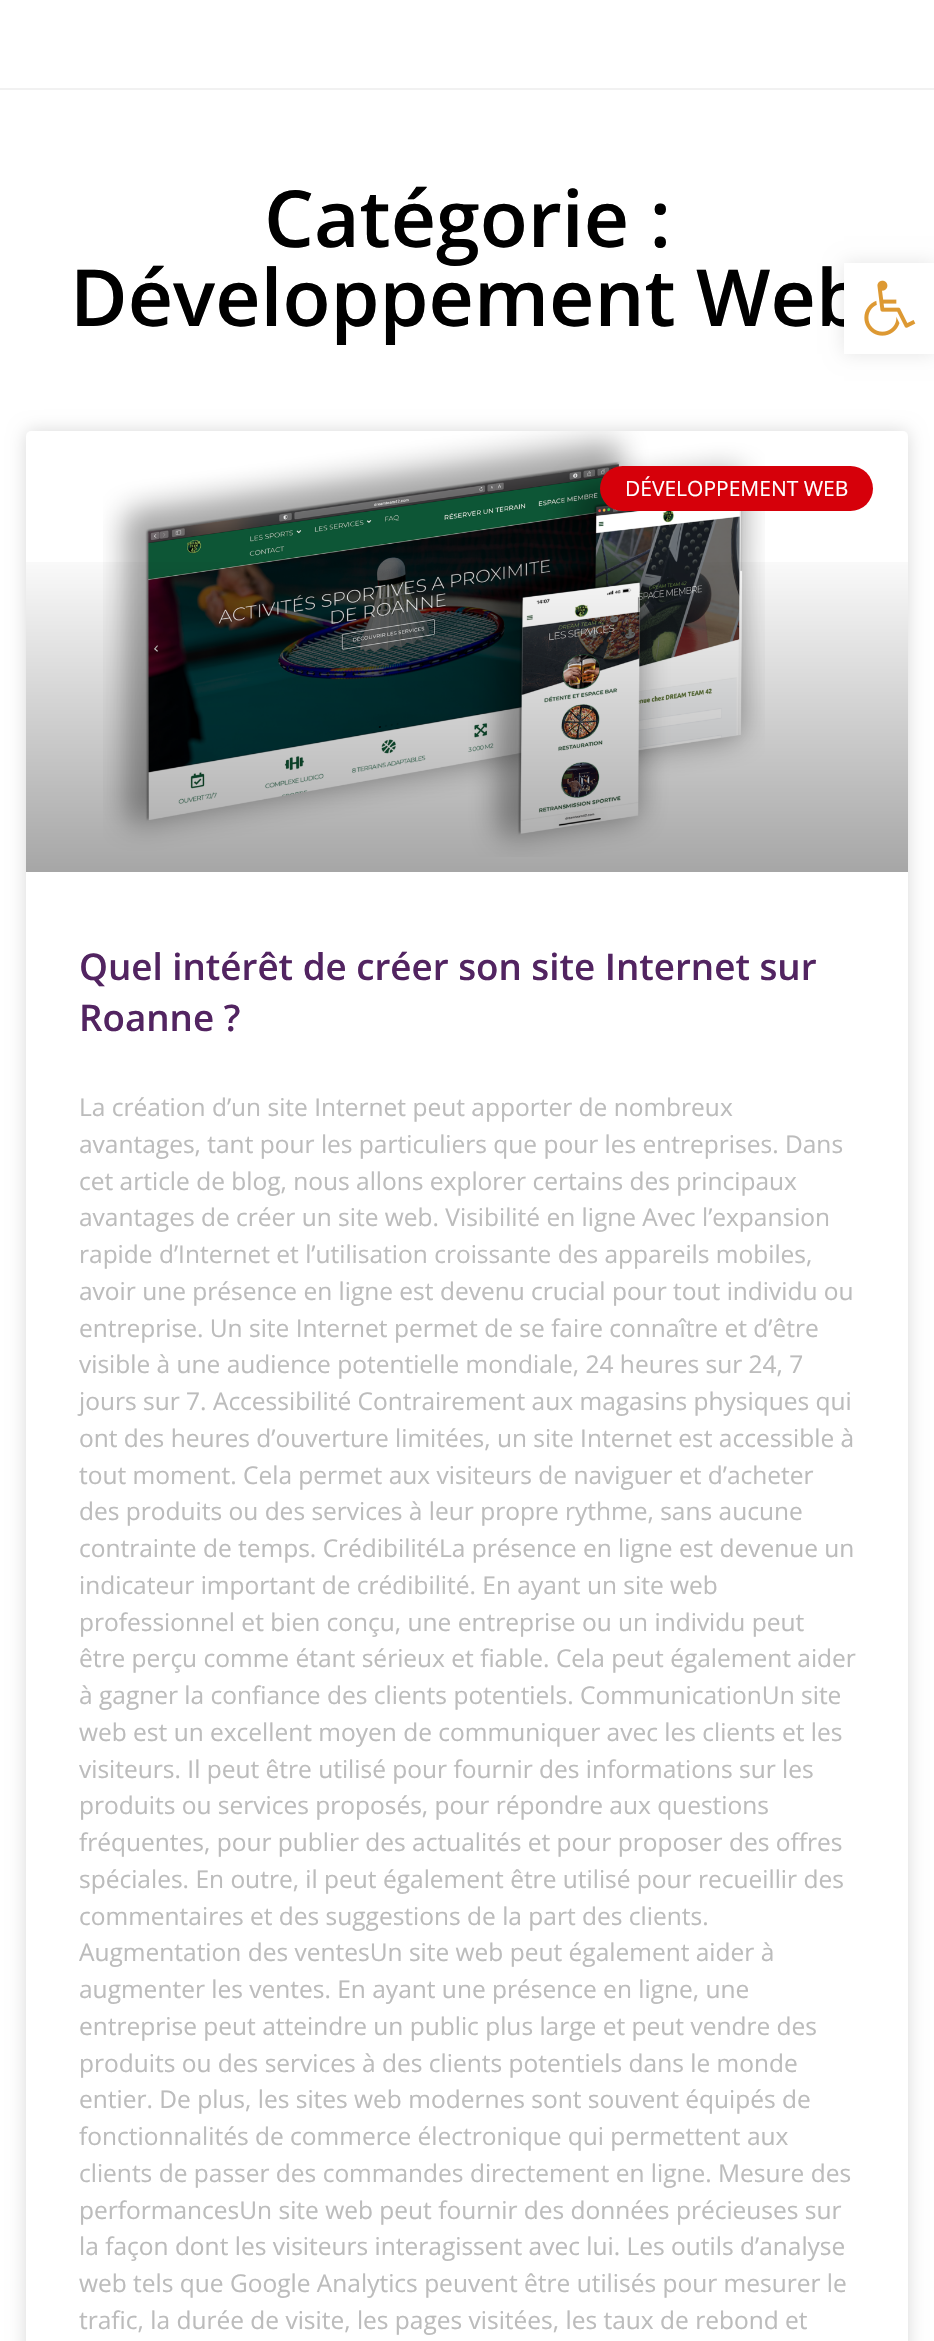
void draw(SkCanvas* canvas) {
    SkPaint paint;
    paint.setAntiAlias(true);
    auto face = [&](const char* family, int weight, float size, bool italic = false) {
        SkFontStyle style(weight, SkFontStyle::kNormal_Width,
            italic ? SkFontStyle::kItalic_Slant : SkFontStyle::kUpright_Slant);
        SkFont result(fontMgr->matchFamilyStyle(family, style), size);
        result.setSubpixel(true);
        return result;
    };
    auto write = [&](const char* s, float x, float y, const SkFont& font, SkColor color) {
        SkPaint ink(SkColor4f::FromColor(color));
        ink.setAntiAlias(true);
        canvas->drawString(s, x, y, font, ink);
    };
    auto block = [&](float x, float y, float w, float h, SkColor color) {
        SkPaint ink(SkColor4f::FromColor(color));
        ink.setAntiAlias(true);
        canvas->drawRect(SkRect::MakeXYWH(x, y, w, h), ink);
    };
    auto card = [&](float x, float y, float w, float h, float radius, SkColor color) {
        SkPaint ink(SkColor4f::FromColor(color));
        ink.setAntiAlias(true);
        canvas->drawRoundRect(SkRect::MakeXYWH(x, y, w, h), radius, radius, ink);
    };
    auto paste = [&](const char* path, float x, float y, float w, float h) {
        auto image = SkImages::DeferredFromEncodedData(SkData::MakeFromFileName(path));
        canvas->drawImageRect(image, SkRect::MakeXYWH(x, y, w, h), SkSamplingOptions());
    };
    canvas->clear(SK_ColorWHITE);
    block(0, 88, 934, 2, SkColorSetRGB(241, 241, 241));
    auto kFont1 = face("Open Sans", 600, 78.75f);
    write("Catégorie :", 264, 247, kFont1, SK_ColorBLACK);
    write("Développement Web", 70, 326, kFont1, SK_ColorBLACK);
    paint.setColor(SkColorSetARGB(38, 0, 0, 0));
    paint.setMaskFilter(SkMaskFilter::MakeBlur(kNormal_SkBlurStyle, 9));
    canvas->drawRoundRect(SkRect::MakeXYWH(26, 431, 882, 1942), 5, 5, paint);
    paint.setMaskFilter(nullptr);
    card(26, 431, 882, 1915, 5, SK_ColorWHITE);
    paste("pic1.png", 103, 431, 662, 426);
    {
        const SkColor colors[] = {SkColorSetARGB(89, 0, 0, 0), SkColorSetARGB(0, 0, 0, 0)};
        const float stops[] = {0, 0.75f};
        const SkPoint ends[] = {{467, 872}, {467, 431}};
        paint.setShader(SkGradientShader::MakeLinear(ends, colors, stops, 2, SkTileMode::kClamp));
        paint.setAlpha(255);
    }
    canvas->drawRect(SkRect::MakeXYWH(26, 562, 882, 310), paint);
    card(600, 466, 273, 45, 22.5f, SkColorSetRGB(214, 0, 10));
    auto kFont2 = face("Open Sans", 400, 21);
    write("DÉVELOPPEMENT WEB", 625, 496, kFont2, SK_ColorWHITE);
    auto kFont3 = face("Open Sans", 600, 36.75f);
    write("Quel intérêt de créer son site Internet sur", 79, 980, kFont3, SkColorSetRGB(82, 36, 97));
    write("Roanne ?", 79, 1031, kFont3, SkColorSetRGB(82, 36, 97));
    auto kFont4 = face("Open Sans", 400, 24.5f);
    write("La création d’un site Internet peut apporter de nombreux", 79, 1116, kFont4, SkColorSetRGB(188, 188, 188));
    write("avantages, tant pour les particuliers que pour les entreprises. Dans", 79, 1153, kFont4, SkColorSetRGB(188, 188, 188));
    write("cet article de blog, nous allons explorer certains des principaux", 79, 1190, kFont4, SkColorSetRGB(188, 188, 188));
    write("avantages de créer un site web. Visibilité en ligne Avec l’expansion", 79, 1226, kFont4, SkColorSetRGB(188, 188, 188));
    write("rapide d’Internet et l’utilisation croissante des appareils mobiles,", 79, 1263, kFont4, SkColorSetRGB(188, 188, 188));
    write("avoir une présence en ligne est devenu crucial pour tout individu ou", 79, 1300, kFont4, SkColorSetRGB(188, 188, 188));
    write("entreprise. Un site Internet permet de se faire connaître et d’être", 79, 1337, kFont4, SkColorSetRGB(188, 188, 188));
    write("visible à une audience potentielle mondiale, 24 heures sur 24, 7", 79, 1373, kFont4, SkColorSetRGB(188, 188, 188));
    write("jours sur 7. Accessibilité Contrairement aux magasins physiques qui", 79, 1410, kFont4, SkColorSetRGB(188, 188, 188));
    write("ont des heures d’ouverture limitées, un site Internet est accessible à", 79, 1447, kFont4, SkColorSetRGB(188, 188, 188));
    write("tout moment. Cela permet aux visiteurs de naviguer et d’acheter", 79, 1484, kFont4, SkColorSetRGB(188, 188, 188));
    write("des produits ou des services à leur propre rythme, sans aucune", 79, 1520, kFont4, SkColorSetRGB(188, 188, 188));
    write("contrainte de temps. CrédibilitéLa présence en ligne est devenue un", 79, 1557, kFont4, SkColorSetRGB(188, 188, 188));
    write("indicateur important de crédibilité. En ayant un site web", 79, 1594, kFont4, SkColorSetRGB(188, 188, 188));
    write("professionnel et bien conçu, une entreprise ou un individu peut", 79, 1631, kFont4, SkColorSetRGB(188, 188, 188));
    write("être perçu comme étant sérieux et fiable. Cela peut également aider", 79, 1667, kFont4, SkColorSetRGB(188, 188, 188));
    write("à gagner la confiance des clients potentiels. CommunicationUn site", 79, 1704, kFont4, SkColorSetRGB(188, 188, 188));
    write("web est un excellent moyen de communiquer avec les clients et les", 79, 1741, kFont4, SkColorSetRGB(188, 188, 188));
    write("visiteurs. Il peut être utilisé pour fournir des informations sur les", 79, 1778, kFont4, SkColorSetRGB(188, 188, 188));
    write("produits ou services proposés, pour répondre aux questions", 79, 1814, kFont4, SkColorSetRGB(188, 188, 188));
    write("fréquentes, pour publier des actualités et pour proposer des offres", 79, 1851, kFont4, SkColorSetRGB(188, 188, 188));
    write("spéciales. En outre, il peut également être utilisé pour recueillir des", 79, 1888, kFont4, SkColorSetRGB(188, 188, 188));
    write("commentaires et des suggestions de la part des clients.", 79, 1925, kFont4, SkColorSetRGB(188, 188, 188));
    write("Augmentation des ventesUn site web peut également aider à", 79, 1961, kFont4, SkColorSetRGB(188, 188, 188));
    write("augmenter les ventes. En ayant une présence en ligne, une", 79, 1998, kFont4, SkColorSetRGB(188, 188, 188));
    write("entreprise peut atteindre un public plus large et peut vendre des", 79, 2035, kFont4, SkColorSetRGB(188, 188, 188));
    write("produits ou des services à des clients potentiels dans le monde", 79, 2072, kFont4, SkColorSetRGB(188, 188, 188));
    write("entier. De plus, les sites web modernes sont souvent équipés de", 79, 2108, kFont4, SkColorSetRGB(188, 188, 188));
    write("fonctionnalités de commerce électronique qui permettent aux", 79, 2145, kFont4, SkColorSetRGB(188, 188, 188));
    write("clients de passer des commandes directement en ligne. Mesure des", 79, 2182, kFont4, SkColorSetRGB(188, 188, 188));
    write("performancesUn site web peut fournir des données précieuses sur", 79, 2219, kFont4, SkColorSetRGB(188, 188, 188));
    write("la façon dont les visiteurs interagissent avec lui. Les outils d’analyse", 79, 2255, kFont4, SkColorSetRGB(188, 188, 188));
    write("web tels que Google Analytics peuvent être utilisés pour mesurer le", 79, 2292, kFont4, SkColorSetRGB(188, 188, 188));
    write("trafic, la durée de visite, les pages visitées, les taux de rebond et", 79, 2329, kFont4, SkColorSetRGB(188, 188, 188));
    paint.setShader(nullptr);
    paint.setColor(SkColorSetARGB(26, 0, 0, 0));
    paint.setMaskFilter(SkMaskFilter::MakeBlur(kNormal_SkBlurStyle, 9));
    canvas->drawRect(SkRect::MakeXYWH(844, 263, 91, 91), paint);
    paint.setMaskFilter(nullptr);
    block(844, 263, 90, 91, SK_ColorWHITE);
    paste("pic2.png", 864, 280, 52, 56);
}
